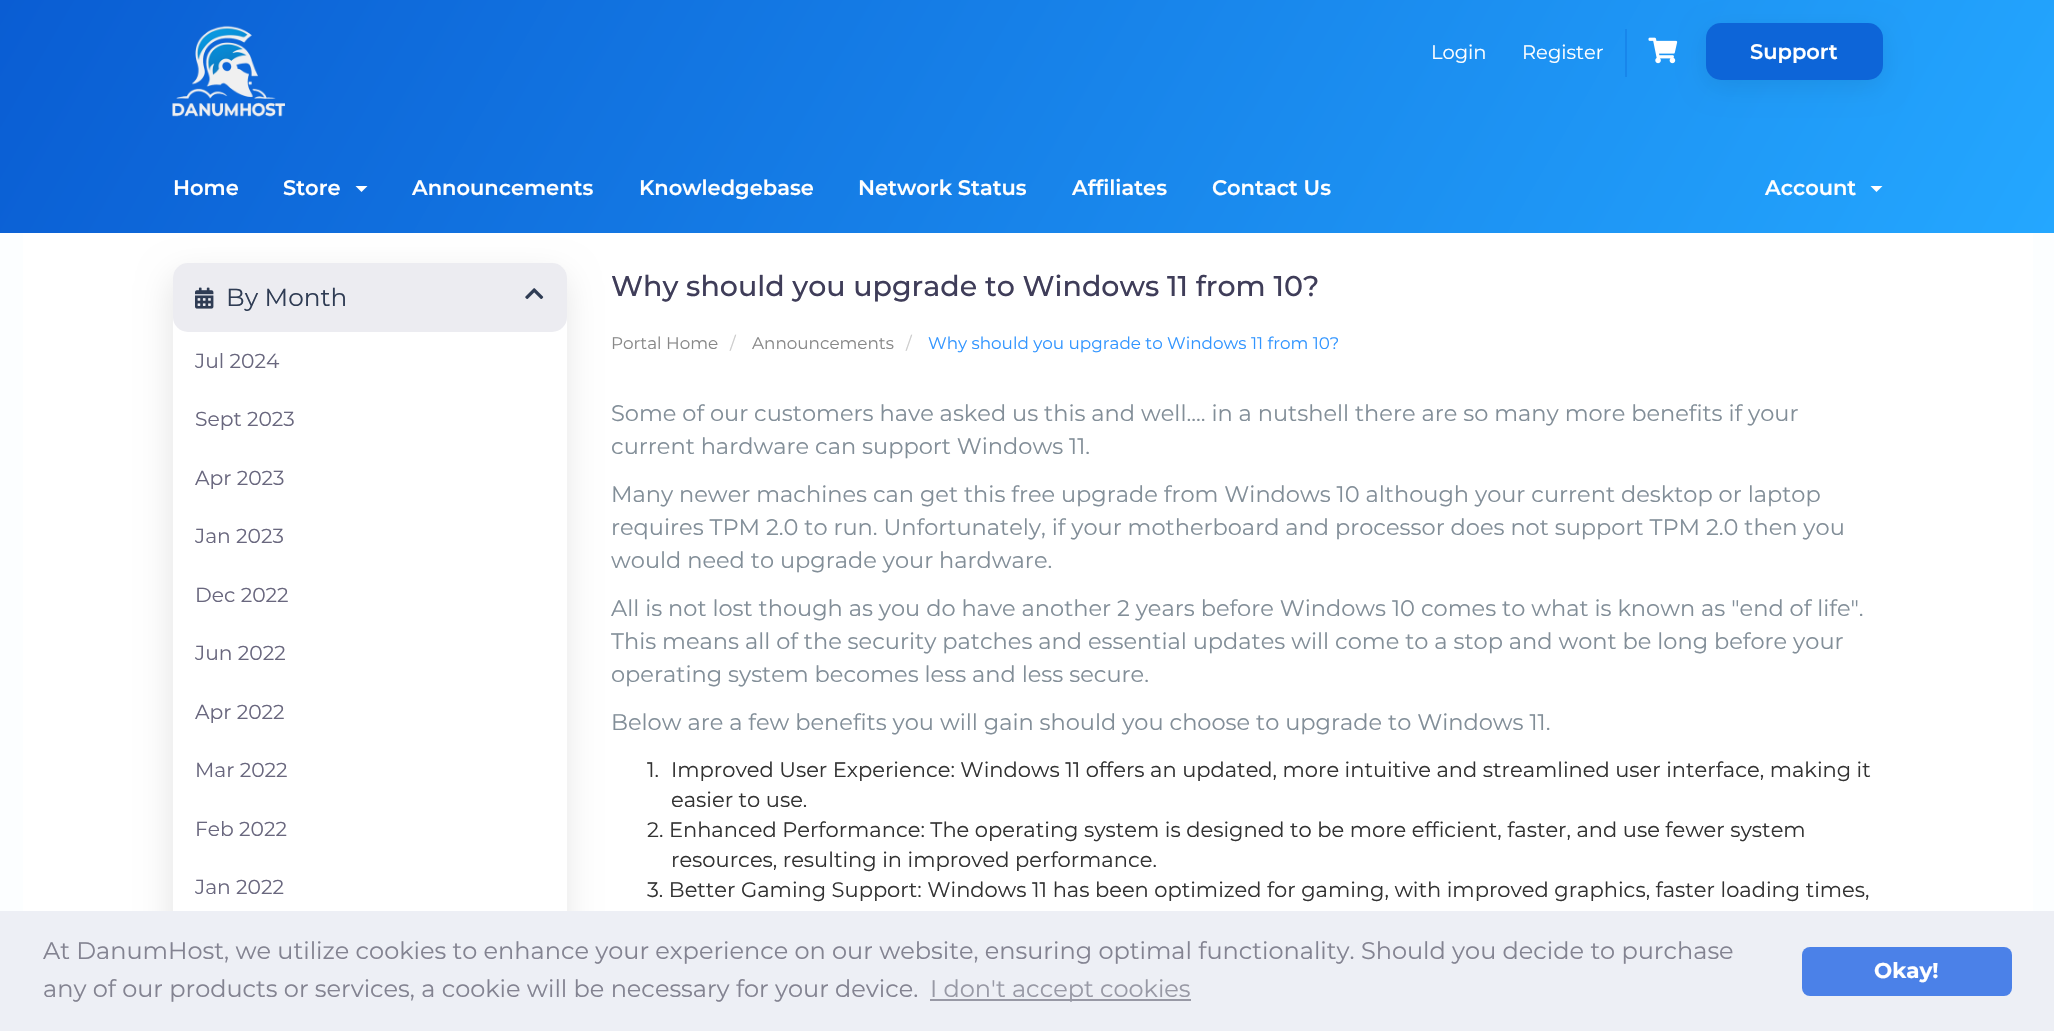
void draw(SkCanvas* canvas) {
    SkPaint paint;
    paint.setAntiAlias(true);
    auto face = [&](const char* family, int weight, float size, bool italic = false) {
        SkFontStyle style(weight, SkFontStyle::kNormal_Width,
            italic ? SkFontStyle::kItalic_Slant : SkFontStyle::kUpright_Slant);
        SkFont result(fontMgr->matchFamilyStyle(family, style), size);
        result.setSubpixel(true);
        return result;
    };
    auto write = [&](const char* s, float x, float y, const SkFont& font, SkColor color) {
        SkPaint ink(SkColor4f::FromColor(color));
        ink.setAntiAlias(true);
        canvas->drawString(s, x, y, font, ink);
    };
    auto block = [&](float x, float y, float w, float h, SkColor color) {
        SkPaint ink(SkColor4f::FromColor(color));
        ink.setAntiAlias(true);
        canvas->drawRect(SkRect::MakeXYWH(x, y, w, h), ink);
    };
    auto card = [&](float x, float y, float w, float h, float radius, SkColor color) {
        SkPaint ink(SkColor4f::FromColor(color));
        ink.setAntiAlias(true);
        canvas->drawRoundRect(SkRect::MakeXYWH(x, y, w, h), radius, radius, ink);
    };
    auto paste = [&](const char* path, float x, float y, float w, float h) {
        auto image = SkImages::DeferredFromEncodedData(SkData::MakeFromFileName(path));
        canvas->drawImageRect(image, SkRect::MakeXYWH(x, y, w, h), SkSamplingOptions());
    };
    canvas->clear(SkColorSetRGB(252, 254, 255));
    block(23, 233, 2010, 678, SK_ColorWHITE);
    paint.setColor(SkColorSetARGB(26, 0, 0, 0));
    paint.setMaskFilter(SkMaskFilter::MakeBlur(kNormal_SkBlurStyle, 16.5f));
    canvas->drawRoundRect(SkRect::MakeXYWH(171, 275, 395, 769), 15, 15, paint);
    paint.setMaskFilter(nullptr);
    {
        const SkColor colors[] = {SkColorSetRGB(10, 93, 211), SkColorSetRGB(36, 167, 255)};
        const float stops[] = {0, 1};
        const SkPoint ends[] = {{207, -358}, {1848, 590}};
        paint.setShader(SkGradientShader::MakeLinear(ends, colors, stops, 2, SkTileMode::kClamp));
        paint.setAlpha(255);
    }
    canvas->drawRect(SkRect::MakeXYWH(0, 0, 2054, 233), paint);
    paste("pic1.png", 172, 25, 113, 92);
    auto kFont1 = face("Montserrat", 400, 19.5f);
    write("Login", 1431, 59, kFont1, SK_ColorWHITE);
    write("Register", 1522, 59, kFont1, SK_ColorWHITE);
    block(1625, 29, 2, 48, SkColorSetRGB(24, 134, 235));
    paste("pic2.png", 1648, 37, 30, 27);
    paint.setShader(nullptr);
    paint.setColor(SkColorSetARGB(20, 0, 0, 0));
    paint.setMaskFilter(SkMaskFilter::MakeBlur(kNormal_SkBlurStyle, 13));
    canvas->drawRoundRect(SkRect::MakeXYWH(1706, 30, 177, 57), 15, 15, paint);
    paint.setMaskFilter(nullptr);
    card(1706, 23, 177, 57, 15, SkColorSetRGB(13, 101, 216));
    auto kFont2 = face("Montserrat", 600, 21);
    write("Support", 1750, 59, kFont2, SK_ColorWHITE);
    write("Home", 173, 195, kFont2, SK_ColorWHITE);
    write("Store", 283, 195, kFont2, SK_ColorWHITE);
    paint.setColor(SK_ColorWHITE);
    canvas->drawPath(SkPathBuilder().moveTo(355.5f, 186).lineTo(367.5f, 186).lineTo(361.5f, 192).close().detach(), paint);
    write("Announcements", 412, 195, kFont2, SK_ColorWHITE);
    write("Knowledgebase", 639, 195, kFont2, SK_ColorWHITE);
    write("Network Status", 858, 195, kFont2, SK_ColorWHITE);
    write("Affiliates", 1072, 195, kFont2, SK_ColorWHITE);
    write("Contact Us", 1212, 195, kFont2, SK_ColorWHITE);
    write("Account", 1765, 195, kFont2, SK_ColorWHITE);
    canvas->drawPath(SkPathBuilder().moveTo(1870.5f, 186).lineTo(1882.5f, 186).lineTo(1876.5f, 192).close().detach(), paint);
    card(173, 263, 394, 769, 15, SK_ColorWHITE);
    card(173, 263, 394, 69, 15, SkColorSetRGB(236, 236, 241));
    paste("pic3.png", 195, 287, 19, 22);
    auto kFont3 = face("Montserrat", 400, 24.75f);
    write("By Month", 226, 306, kFont3, SkColorSetRGB(47, 60, 84));
    paste("pic4.png", 525, 288, 19, 11);
    auto kFont4 = face("Montserrat", 400, 20.25f);
    write("Jul 2024", 195, 368, kFont4, SkColorSetRGB(105, 103, 126));
    write("Sept 2023", 195, 426, kFont4, SkColorSetRGB(105, 103, 126));
    write("Apr 2023", 195, 485, kFont4, SkColorSetRGB(105, 103, 126));
    write("Jan 2023", 195, 543, kFont4, SkColorSetRGB(105, 103, 126));
    write("Dec 2022", 195, 602, kFont4, SkColorSetRGB(105, 103, 126));
    write("Jun 2022", 195, 660, kFont4, SkColorSetRGB(105, 103, 126));
    write("Apr 2022", 195, 719, kFont4, SkColorSetRGB(105, 103, 126));
    write("Mar 2022", 195, 777, kFont4, SkColorSetRGB(105, 103, 126));
    write("Feb 2022", 195, 836, kFont4, SkColorSetRGB(105, 103, 126));
    write("Jan 2022", 195, 894, kFont4, SkColorSetRGB(105, 103, 126));
    auto kFont5 = face("Montserrat", 500, 28.5f);
    write("Why should you upgrade to Windows 11 from 10?", 611, 296, kFont5, SkColorSetRGB(63, 61, 89));
    auto kFont6 = face("Montserrat", 400, 16.8f);
    write("Portal Home", 611, 349, kFont6, SkColorSetRGB(136, 136, 136));
    write("/", 730, 349, kFont6, SkColorSetRGB(204, 204, 204));
    write("Announcements", 752, 349, kFont6, SkColorSetRGB(136, 136, 136));
    write("/", 906, 349, kFont6, SkColorSetRGB(204, 204, 204));
    write("Why should you upgrade to Windows 11 from 10?", 928, 349, kFont6, SkColorSetRGB(49, 149, 255));
    auto kFont7 = face("Montserrat", 400, 22.5f);
    write("Some of our customers have asked us this and well.... in a nutshell there are so many more benefits if your", 611, 421, kFont7, SkColorSetRGB(130, 142, 152));
    write("current hardware can support Windows 11.", 611, 454, kFont7, SkColorSetRGB(130, 142, 152));
    write("Many newer machines can get this free upgrade from Windows 10 although your current desktop or laptop", 611, 502, kFont7, SkColorSetRGB(130, 142, 152));
    write("requires TPM 2.0 to run. Unfortunately, if your motherboard and processor does not support TPM 2.0 then you", 611, 535, kFont7, SkColorSetRGB(130, 142, 152));
    write("would need to upgrade your hardware.", 611, 568, kFont7, SkColorSetRGB(130, 142, 152));
    write("All is not lost though as you do have another 2 years before Windows 10 comes to what is known as \"end of life\".", 611, 616, kFont7, SkColorSetRGB(130, 142, 152));
    write("This means all of the security patches and essential updates will come to a stop and wont be long before your", 611, 649, kFont7, SkColorSetRGB(130, 142, 152));
    write("operating system becomes less and less secure.", 611, 682, kFont7, SkColorSetRGB(130, 142, 152));
    write("Below are a few benefits you will gain should you choose to upgrade to Windows 11.", 611, 730, kFont7, SkColorSetRGB(130, 142, 152));
    auto kFont8 = face("Montserrat", 400, 21);
    write("1.", 647, 777, kFont8, SkColorSetRGB(51, 51, 51));
    write("Improved User Experience: Windows 11 offers an updated, more intuitive and streamlined user interface, making it", 671, 777, kFont8, SkColorSetRGB(51, 51, 51));
    write("easier to use.", 671, 807, kFont8, SkColorSetRGB(51, 51, 51));
    write("2. Enhanced Performance: The operating system is designed to be more efficient, faster, and use fewer system", 647, 837, kFont8, SkColorSetRGB(51, 51, 51));
    write("resources, resulting in improved performance.", 671, 867, kFont8, SkColorSetRGB(51, 51, 51));
    write("3. Better Gaming Support: Windows 11 has been optimized for gaming, with improved graphics, faster loading times,", 647, 897, kFont8, SkColorSetRGB(51, 51, 51));
    block(0, 911, 2054, 120, SkColorSetRGB(237, 239, 245));
    auto kFont9 = face("Montserrat", 400, 24);
    write("At DanumHost, we utilize cookies to enhance your experience on our website, ensuring optimal functionality. Should you decide to purchase", 43, 959, kFont9, SkColorSetRGB(131, 131, 145));
    write("any of our products or services, a cookie will be necessary for your device.", 43, 997, kFont9, SkColorSetRGB(131, 131, 145));
    block(930, 999, 261, 2, SkColorSetRGB(152, 153, 165));
    write("I don't accept cookies", 930, 997, kFont9, SkColorSetRGB(152, 153, 165));
    card(1802, 947, 210, 49, 8, SkColorSetRGB(75, 129, 232));
    auto kFont10 = face("Montserrat", 700, 21.5f);
    write("Okay!", 1874, 978, kFont10, SK_ColorWHITE);
}
